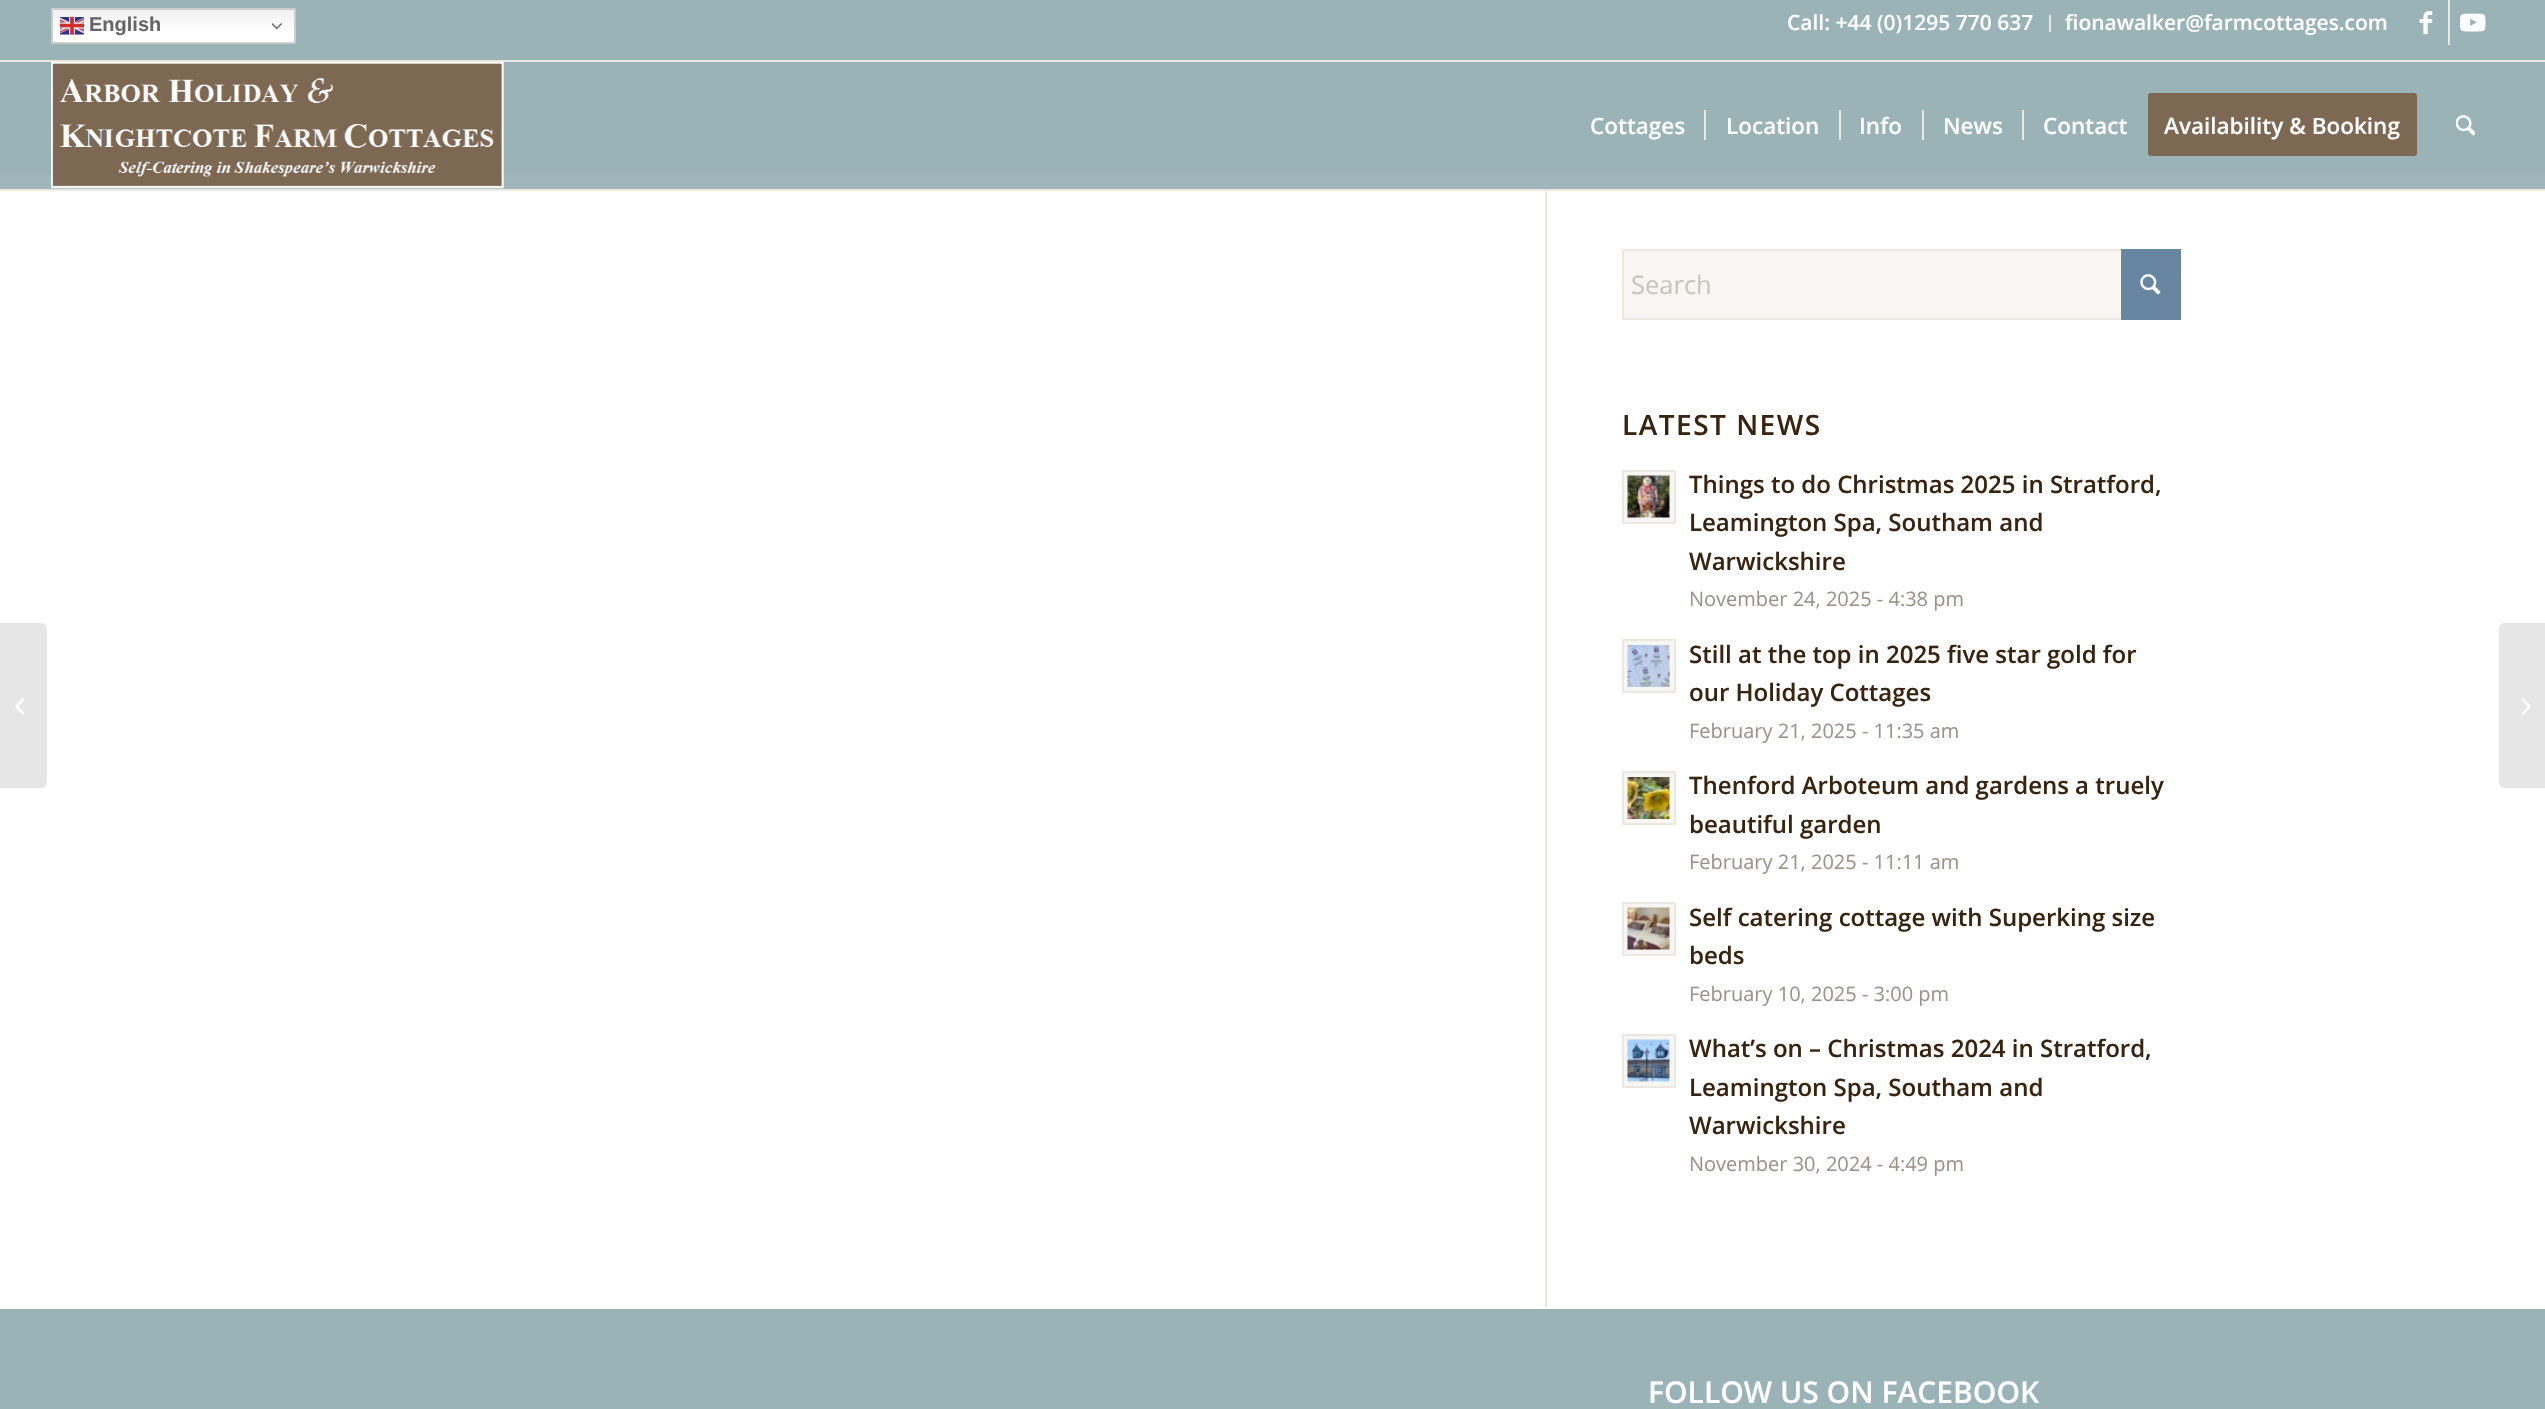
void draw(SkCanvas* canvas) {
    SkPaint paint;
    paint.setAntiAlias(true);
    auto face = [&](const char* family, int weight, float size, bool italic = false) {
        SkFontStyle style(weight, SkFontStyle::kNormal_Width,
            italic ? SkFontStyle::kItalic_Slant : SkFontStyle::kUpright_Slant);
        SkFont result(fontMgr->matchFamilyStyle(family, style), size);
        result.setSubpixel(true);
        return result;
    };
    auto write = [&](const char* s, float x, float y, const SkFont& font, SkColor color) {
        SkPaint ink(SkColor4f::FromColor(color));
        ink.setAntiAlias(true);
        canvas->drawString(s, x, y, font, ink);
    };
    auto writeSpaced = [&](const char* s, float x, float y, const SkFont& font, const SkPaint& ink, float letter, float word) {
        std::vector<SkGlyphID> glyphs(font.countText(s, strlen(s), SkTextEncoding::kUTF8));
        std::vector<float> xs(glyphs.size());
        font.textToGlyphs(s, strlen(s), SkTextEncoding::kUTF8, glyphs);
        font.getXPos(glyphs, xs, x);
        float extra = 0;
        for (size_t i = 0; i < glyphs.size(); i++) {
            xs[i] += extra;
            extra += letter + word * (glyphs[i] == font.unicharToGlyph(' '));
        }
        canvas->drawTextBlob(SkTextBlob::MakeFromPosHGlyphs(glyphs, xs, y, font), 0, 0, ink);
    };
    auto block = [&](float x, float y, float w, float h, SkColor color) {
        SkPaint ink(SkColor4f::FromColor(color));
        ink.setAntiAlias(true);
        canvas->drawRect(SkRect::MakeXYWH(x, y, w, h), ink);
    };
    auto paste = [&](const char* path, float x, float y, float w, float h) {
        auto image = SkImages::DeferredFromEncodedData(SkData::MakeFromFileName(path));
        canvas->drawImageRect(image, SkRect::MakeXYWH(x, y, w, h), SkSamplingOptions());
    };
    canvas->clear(SkColorSetRGB(154, 179, 183));
    block(0, 60, 2545, 2, SkColorSetRGB(235, 232, 226));
    {
        const SkColor colors[] = {SkColorSetRGB(239, 239, 239), SK_ColorWHITE};
        const float stops[] = {0, 0.7f};
        const SkPoint ends[] = {{173, 7.5f}, {173, 44}};
        paint.setShader(SkGradientShader::MakeLinear(ends, colors, stops, 2, SkTileMode::kClamp));
        paint.setAlpha(255);
    }
    canvas->drawRect(SkRect::MakeXYWH(53, 10, 241, 32), paint);
    paint.setStyle(SkPaint::kStroke_Style);
    paint.setStrokeWidth(2);
    paint.setShader(nullptr);
    paint.setColor(SkColorSetRGB(204, 204, 204));
    canvas->drawRect(SkRect::MakeXYWH(52, 9, 243, 34), paint);
    paste("pic1.png", 60, 16, 24, 19);
    auto kFont1 = face("Liberation Sans", 700, 20);
    write("English", 89, 31, kFont1, SkColorSetRGB(102, 102, 102));
    paste("pic2.png", 272, 23, 10, 7);
    block(2049, 15, 2, 17, SkColorSetRGB(235, 232, 226));
    auto kFont2 = face("Open Sans", 600, 21);
    write("Call: +44 (0)1295 770 637", 1787, 30, kFont2, SK_ColorWHITE);
    write("fionawalker@farmcottages.com", 2065, 30, kFont2, SK_ColorWHITE);
    block(2448, 0, 2, 45, SkColorSetRGB(235, 232, 226));
    paste("pic3.png", 2419, 11, 14, 24);
    paste("pic4.png", 2460, 13, 26, 19);
    block(1545, 189, 2, 2, SkColorSetRGB(158, 182, 185));
    block(0, 189, 2545, 2, SkColorSetRGB(235, 232, 226));
    block(0, 175, 2545, 14, SkColorSetRGB(159, 183, 187));
    block(0, 173, 2545, 2, SkColorSetRGB(158, 182, 185));
    paste("pic5.png", 51, 62, 453, 127);
    auto kFont3 = face("Open Sans", 600, 22.5f);
    write("Cottages", 1590, 134, kFont3, SK_ColorWHITE);
    write("Location", 1726, 134, kFont3, SK_ColorWHITE);
    block(1704, 110, 2, 30, SkColorSetRGB(235, 232, 226));
    write("Info", 1859, 134, kFont3, SK_ColorWHITE);
    block(1839, 110, 2, 30, SkColorSetRGB(235, 232, 226));
    write("News", 1943, 134, kFont3, SK_ColorWHITE);
    block(1922, 110, 2, 30, SkColorSetRGB(235, 232, 226));
    write("Contact", 2043, 134, kFont3, SK_ColorWHITE);
    block(2022, 110, 2, 30, SkColorSetRGB(235, 232, 226));
    paint.setStyle(SkPaint::kFill_Style);
    paint.setColor(SkColorSetRGB(124, 104, 83));
    canvas->drawRoundRect(SkRect::MakeXYWH(2149.5f, 94.5f, 266, 60), 1.5f, 1.5f, paint);
    paint.setStyle(SkPaint::kStroke_Style);
    paint.setStrokeWidth(3);
    canvas->drawRoundRect(SkRect::MakeXYWH(2149.5f, 94.5f, 266, 60), 1.5f, 1.5f, paint);
    write("Availability & Booking", 2164, 134, kFont3, SK_ColorWHITE);
    paste("pic6.png", 2456, 115, 19, 21);
    block(0, 191, 2545, 1118, SK_ColorWHITE);
    paint.setStyle(SkPaint::kFill_Style);
    paint.setColor(SkColorSetRGB(230, 230, 230));
    canvas->drawPath(SkPathBuilder().moveTo(0, 623).lineTo(41, 623).cubicTo(44.5f, 623, 47, 625.5f, 47, 629).lineTo(47, 782).cubicTo(47, 785.5f, 44.5f, 788, 41, 788).lineTo(0, 788).close().detach(), paint);
    paste("pic7.png", 15, 698, 9, 17);
    block(1545, 191, 2, 1116, SkColorSetRGB(235, 232, 226));
    block(1624, 251, 497, 67, SkColorSetRGB(248, 246, 242));
    paint.setStyle(SkPaint::kStroke_Style);
    paint.setStrokeWidth(2);
    paint.setColor(SkColorSetRGB(235, 232, 226));
    canvas->drawRect(SkRect::MakeXYWH(1623, 250, 557, 69), paint);
    auto kFont4 = face("Open Sans", 400, 25.5f);
    write("Search", 1631, 294, kFont4, SkColorSetRGB(202, 196, 189));
    block(2121, 249, 60, 71, SkColorSetRGB(103, 134, 161));
    paste("pic8.png", 2140, 274, 21, 21);
    auto kFont5 = face("Open Sans", 600, 28);
    paint.setStyle(SkPaint::kFill_Style);
    paint.setColor(SkColorSetRGB(56, 36, 16));
    writeSpaced("LATEST NEWS", 1622, 435, kFont5, paint, 1.5f, 0);
    paint.setColor(SkColorSetRGB(248, 246, 242));
    canvas->drawRect(SkRect::MakeXYWH(1623, 471, 52, 52), paint);
    paint.setStyle(SkPaint::kStroke_Style);
    paint.setColor(SkColorSetRGB(235, 232, 226));
    canvas->drawRect(SkRect::MakeXYWH(1623, 471, 52, 52), paint);
    paste("pic9.png", 1627, 475, 43, 43);
    auto kFont6 = face("Open Sans", 600, 24);
    write("Things to do Christmas 2025 in Stratford,", 1689, 493, kFont6, SkColorSetRGB(56, 36, 16));
    write("Leamington Spa, Southam and", 1689, 531, kFont6, SkColorSetRGB(56, 36, 16));
    write("Warwickshire", 1689, 570, kFont6, SkColorSetRGB(56, 36, 16));
    auto kFont7 = face("Open Sans", 400, 20);
    write("November 24, 2025 - 4:38 pm", 1689, 606, kFont7, SkColorSetRGB(156, 146, 136));
    paint.setStyle(SkPaint::kFill_Style);
    paint.setColor(SkColorSetRGB(248, 246, 242));
    canvas->drawRect(SkRect::MakeXYWH(1623, 640, 52, 52), paint);
    paint.setStyle(SkPaint::kStroke_Style);
    paint.setColor(SkColorSetRGB(235, 232, 226));
    canvas->drawRect(SkRect::MakeXYWH(1623, 640, 52, 52), paint);
    paste("pic10.png", 1627, 645, 43, 42);
    write("Still at the top in 2025 five star gold for", 1689, 663, kFont6, SkColorSetRGB(56, 36, 16));
    write("our Holiday Cottages", 1689, 701, kFont6, SkColorSetRGB(56, 36, 16));
    write("February 21, 2025 - 11:35 am", 1689, 738, kFont7, SkColorSetRGB(156, 146, 136));
    paint.setStyle(SkPaint::kFill_Style);
    paint.setColor(SkColorSetRGB(248, 246, 242));
    canvas->drawRect(SkRect::MakeXYWH(1623, 772, 52, 52), paint);
    paint.setStyle(SkPaint::kStroke_Style);
    paint.setColor(SkColorSetRGB(235, 232, 226));
    canvas->drawRect(SkRect::MakeXYWH(1623, 772, 52, 52), paint);
    paste("pic11.png", 1627, 777, 43, 42);
    write("Thenford Arboteum and gardens a truely", 1689, 794, kFont6, SkColorSetRGB(56, 36, 16));
    write("beautiful garden", 1689, 833, kFont6, SkColorSetRGB(56, 36, 16));
    write("February 21, 2025 - 11:11 am", 1689, 869, kFont7, SkColorSetRGB(156, 146, 136));
    paint.setStyle(SkPaint::kFill_Style);
    paint.setColor(SkColorSetRGB(248, 246, 242));
    canvas->drawRect(SkRect::MakeXYWH(1623, 903, 52, 52), paint);
    paint.setStyle(SkPaint::kStroke_Style);
    paint.setColor(SkColorSetRGB(235, 232, 226));
    canvas->drawRect(SkRect::MakeXYWH(1623, 903, 52, 52), paint);
    paste("pic12.png", 1627, 907, 43, 43);
    write("Self catering cottage with Superking size", 1689, 926, kFont6, SkColorSetRGB(56, 36, 16));
    write("beds", 1689, 964, kFont6, SkColorSetRGB(56, 36, 16));
    write("February 10, 2025 - 3:00 pm", 1689, 1001, kFont7, SkColorSetRGB(156, 146, 136));
    paint.setStyle(SkPaint::kFill_Style);
    paint.setColor(SkColorSetRGB(248, 246, 242));
    canvas->drawRect(SkRect::MakeXYWH(1623, 1035, 52, 52), paint);
    paint.setStyle(SkPaint::kStroke_Style);
    paint.setColor(SkColorSetRGB(235, 232, 226));
    canvas->drawRect(SkRect::MakeXYWH(1623, 1035, 52, 52), paint);
    paste("pic13.png", 1627, 1039, 43, 43);
    write("What’s on – Christmas 2024 in Stratford,", 1689, 1057, kFont6, SkColorSetRGB(56, 36, 16));
    write("Leamington Spa, Southam and", 1689, 1096, kFont6, SkColorSetRGB(56, 36, 16));
    write("Warwickshire", 1689, 1134, kFont6, SkColorSetRGB(56, 36, 16));
    write("November 30, 2024 - 4:49 pm", 1689, 1171, kFont7, SkColorSetRGB(156, 146, 136));
    auto kFont8 = face("Open Sans", 600, 30);
    write("FOLLOW US ON FACEBOOK", 1648, 1403, kFont8, SK_ColorWHITE);
    paint.setStyle(SkPaint::kFill_Style);
    paint.setColor(SkColorSetRGB(230, 230, 230));
    canvas->drawPath(SkPathBuilder().moveTo(2505, 623).lineTo(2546, 623).lineTo(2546, 788).lineTo(2505, 788).cubicTo(2501.5f, 788, 2499, 785.5f, 2499, 782).lineTo(2499, 629).cubicTo(2499, 625.5f, 2501.5f, 623, 2505, 623).close().detach(), paint);
    paste("pic14.png", 2522, 698, 9, 17);
}
